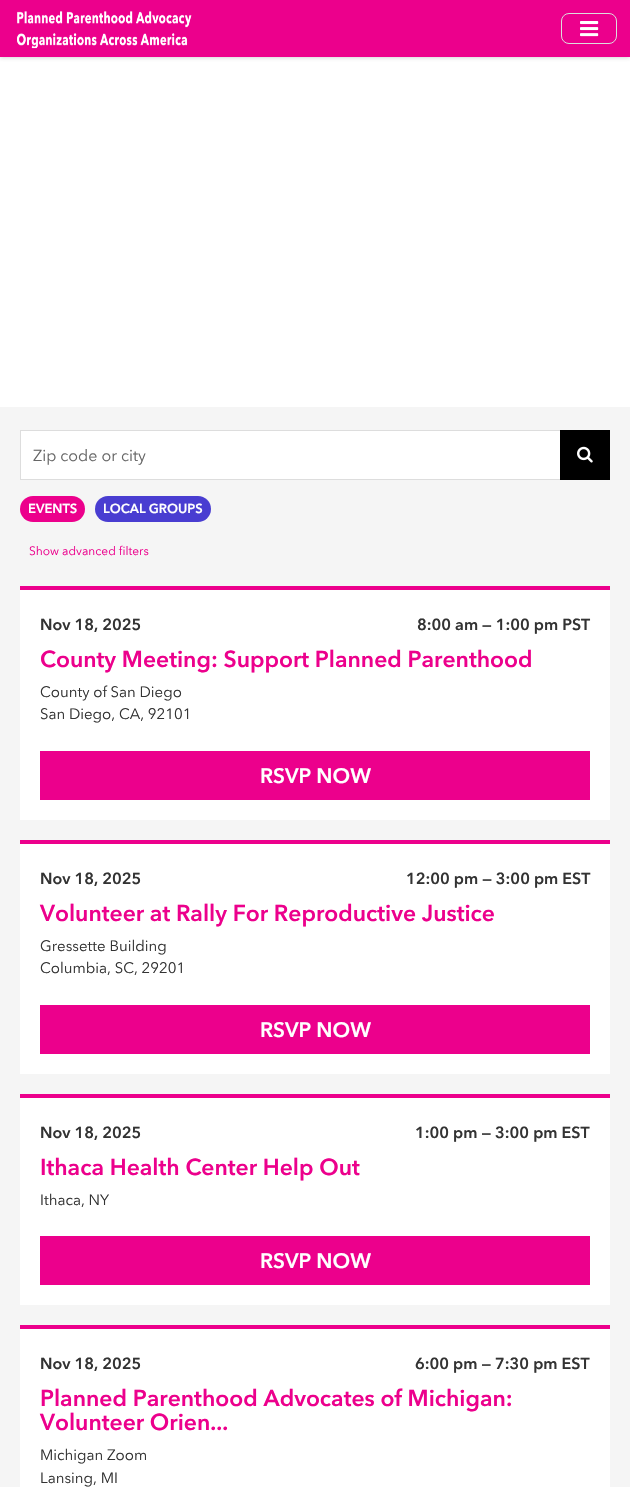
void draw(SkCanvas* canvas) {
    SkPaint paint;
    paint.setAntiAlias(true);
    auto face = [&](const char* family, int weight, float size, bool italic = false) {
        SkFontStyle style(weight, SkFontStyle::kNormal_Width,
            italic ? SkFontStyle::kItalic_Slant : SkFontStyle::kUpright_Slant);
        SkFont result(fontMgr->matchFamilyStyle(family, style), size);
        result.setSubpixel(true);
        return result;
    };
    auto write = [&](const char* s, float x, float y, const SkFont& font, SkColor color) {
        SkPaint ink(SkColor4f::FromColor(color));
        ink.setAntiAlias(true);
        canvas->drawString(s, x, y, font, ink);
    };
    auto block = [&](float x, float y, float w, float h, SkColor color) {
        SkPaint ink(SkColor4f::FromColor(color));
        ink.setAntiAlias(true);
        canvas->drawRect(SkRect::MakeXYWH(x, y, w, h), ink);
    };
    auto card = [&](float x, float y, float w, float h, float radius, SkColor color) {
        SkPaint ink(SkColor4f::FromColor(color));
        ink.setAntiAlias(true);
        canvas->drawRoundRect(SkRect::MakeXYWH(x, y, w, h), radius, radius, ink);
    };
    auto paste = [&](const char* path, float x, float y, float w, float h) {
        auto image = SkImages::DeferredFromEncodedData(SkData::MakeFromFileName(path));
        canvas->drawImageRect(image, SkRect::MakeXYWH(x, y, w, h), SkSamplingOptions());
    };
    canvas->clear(SK_ColorWHITE);
    paint.setColor(SkColorSetARGB(51, 51, 51, 51));
    paint.setMaskFilter(SkMaskFilter::MakeBlur(kNormal_SkBlurStyle, 2));
    canvas->drawRect(SkRect::MakeXYWH(0, 1, 630, 57), paint);
    paint.setMaskFilter(nullptr);
    block(0, 0, 630, 57, SkColorSetRGB(236, 0, 140));
    paste("pic1.png", 17, 11, 175, 38);
    paint.setStyle(SkPaint::kStroke_Style);
    paint.setStrokeWidth(1);
    paint.setColor(SkColorSetRGB(221, 221, 221));
    canvas->drawRoundRect(SkRect::MakeXYWH(561.5f, 13.5f, 55, 30), 7.5f, 7.5f, paint);
    paste("pic2.png", 580, 21, 19, 16);
    block(0, 407, 630, 1080, SkColorSetRGB(245, 245, 245));
    paint.setStyle(SkPaint::kFill_Style);
    paint.setColor(SK_ColorWHITE);
    canvas->drawRect(SkRect::MakeXYWH(20.5f, 430.5f, 540, 49), paint);
    paint.setStyle(SkPaint::kStroke_Style);
    paint.setColor(SkColorSetRGB(221, 221, 221));
    canvas->drawRect(SkRect::MakeXYWH(20.5f, 430.5f, 540, 49), paint);
    auto kFont1 = face("Avenir Next", 400, 16);
    write("Zip code or city", 33, 461, kFont1, SkColorSetRGB(102, 102, 102));
    block(560, 430, 50, 50, SK_ColorBLACK);
    paste("pic3.png", 577, 446, 16, 17);
    card(20, 496, 65, 26, 13, SkColorSetRGB(236, 0, 140));
    auto kFont2 = face("Avenir Next", 700, 13);
    write("EVENTS", 28, 513, kFont2, SK_ColorWHITE);
    card(95, 496, 116, 26, 13, SkColorSetRGB(73, 61, 209));
    write("LOCAL GROUPS", 103, 513, kFont2, SK_ColorWHITE);
    auto kFont3 = face("Avenir Next", 400, 12);
    write("Show advanced filters", 29, 555, kFont3, SkColorSetRGB(236, 0, 140));
    block(20, 590, 590, 230, SK_ColorWHITE);
    block(20, 586, 590, 4, SkColorSetRGB(236, 0, 140));
    auto kFont4 = face("Avenir Next", 700, 16);
    write("Nov 18, 2025", 40, 630, kFont4, SkColorSetRGB(51, 51, 51));
    write("8:00 am — 1:00 pm PST", 417, 630, kFont4, SkColorSetRGB(51, 51, 51));
    auto kFont5 = face("Avenir Next", 700, 22.9f);
    write("County Meeting: Support Planned Parenthood", 40, 667, kFont5, SkColorSetRGB(236, 0, 140));
    auto kFont6 = face("Avenir Next", 400, 15);
    write("County of San Diego", 40, 697, kFont6, SkColorSetRGB(51, 51, 51));
    write("San Diego, CA, 92101", 40, 719, kFont6, SkColorSetRGB(51, 51, 51));
    block(40, 751, 550, 49, SkColorSetRGB(236, 0, 140));
    auto kFont7 = face("Avenir Next", 700, 20.75f);
    write("RSVP NOW", 260, 783, kFont7, SK_ColorWHITE);
    block(20, 844, 590, 230, SK_ColorWHITE);
    block(20, 840, 590, 4, SkColorSetRGB(236, 0, 140));
    write("Nov 18, 2025", 40, 884, kFont4, SkColorSetRGB(51, 51, 51));
    write("12:00 pm — 3:00 pm EST", 406, 884, kFont4, SkColorSetRGB(51, 51, 51));
    write("Volunteer at Rally For Reproductive Justice", 40, 921, kFont5, SkColorSetRGB(236, 0, 140));
    write("Gressette Building", 40, 951, kFont6, SkColorSetRGB(51, 51, 51));
    write("Columbia, SC, 29201", 40, 973, kFont6, SkColorSetRGB(51, 51, 51));
    block(40, 1005, 550, 49, SkColorSetRGB(236, 0, 140));
    write("RSVP NOW", 260, 1037, kFont7, SK_ColorWHITE);
    block(20, 1098, 590, 207, SK_ColorWHITE);
    block(20, 1094, 590, 4, SkColorSetRGB(236, 0, 140));
    write("Nov 18, 2025", 40, 1138, kFont4, SkColorSetRGB(51, 51, 51));
    write("1:00 pm — 3:00 pm EST", 415, 1138, kFont4, SkColorSetRGB(51, 51, 51));
    write("Ithaca Health Center Help Out", 40, 1175, kFont5, SkColorSetRGB(236, 0, 140));
    write("Ithaca, NY", 40, 1205, kFont6, SkColorSetRGB(51, 51, 51));
    block(40, 1236, 550, 49, SkColorSetRGB(236, 0, 140));
    write("RSVP NOW", 260, 1268, kFont7, SK_ColorWHITE);
    block(20, 1329, 590, 158, SK_ColorWHITE);
    block(20, 1325, 590, 4, SkColorSetRGB(236, 0, 140));
    write("Nov 18, 2025", 40, 1369, kFont4, SkColorSetRGB(51, 51, 51));
    write("6:00 pm — 7:30 pm EST", 415, 1369, kFont4, SkColorSetRGB(51, 51, 51));
    write("Planned Parenthood Advocates of Michigan:", 40, 1406, kFont5, SkColorSetRGB(236, 0, 140));
    write("Volunteer Orien...", 40, 1430, kFont5, SkColorSetRGB(236, 0, 140));
    write("Michigan Zoom", 40, 1460, kFont6, SkColorSetRGB(51, 51, 51));
    write("Lansing, MI", 40, 1483, kFont6, SkColorSetRGB(51, 51, 51));
}
